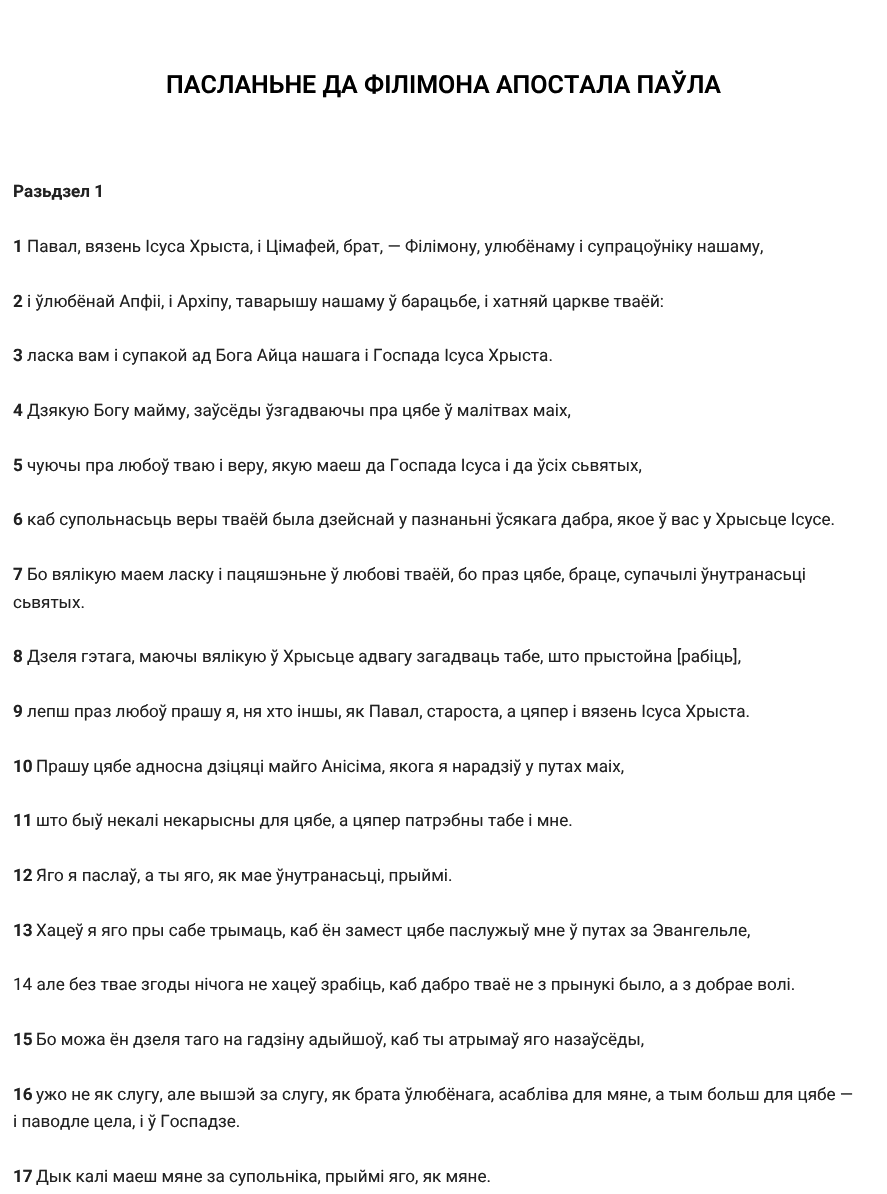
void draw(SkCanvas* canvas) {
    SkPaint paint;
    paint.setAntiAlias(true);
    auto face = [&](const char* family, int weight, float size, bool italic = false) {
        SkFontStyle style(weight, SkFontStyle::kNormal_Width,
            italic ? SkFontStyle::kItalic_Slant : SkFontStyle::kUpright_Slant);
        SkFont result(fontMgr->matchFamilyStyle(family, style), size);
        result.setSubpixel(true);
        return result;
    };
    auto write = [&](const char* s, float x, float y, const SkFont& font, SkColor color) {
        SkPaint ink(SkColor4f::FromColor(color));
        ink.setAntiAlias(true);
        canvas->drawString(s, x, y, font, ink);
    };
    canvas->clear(SK_ColorWHITE);
    auto kFont1 = face("Roboto", 600, 25);
    write("ПАСЛАНЬНЕ ДА ФІЛІМОНА АПОСТАЛА ПАЎЛА", 166, 93, kFont1, SK_ColorBLACK);
    auto kFont2 = face("Roboto", 700, 17.1f);
    write("Разьдзел 1", 13, 197, kFont2, SkColorSetRGB(33, 33, 33));
    write("1", 13, 252, kFont2, SkColorSetRGB(33, 33, 33));
    auto kFont3 = face("Roboto", 400, 17.1f);
    write("Павал, вязень Ісуса Хрыста, і Цімафей, брат, — Філімону, улюбёнаму і супрацоўніку нашаму,", 27, 252, kFont3, SkColorSetRGB(33, 33, 33));
    write("2", 13, 307, kFont2, SkColorSetRGB(33, 33, 33));
    write("і ўлюбёнай Апфіі, і Архіпу, таварышу нашаму ў барацьбе, і хатняй царкве тваёй:", 27, 307, kFont3, SkColorSetRGB(33, 33, 33));
    write("3", 13, 361, kFont2, SkColorSetRGB(33, 33, 33));
    write("ласка вам і супакой ад Бога Айца нашага і Госпада Ісуса Хрыста.", 27, 361, kFont3, SkColorSetRGB(33, 33, 33));
    write("4", 13, 416, kFont2, SkColorSetRGB(33, 33, 33));
    write("Дзякую Богу майму, заўсёды ўзгадваючы пра цябе ў малітвах маіх,", 27, 416, kFont3, SkColorSetRGB(33, 33, 33));
    write("5", 13, 471, kFont2, SkColorSetRGB(33, 33, 33));
    write("чуючы пра любоў тваю і веру, якую маеш да Госпада Ісуса і да ўсіх сьвятых,", 27, 471, kFont3, SkColorSetRGB(33, 33, 33));
    write("6", 13, 525, kFont2, SkColorSetRGB(33, 33, 33));
    write("каб супольнасьць веры тваёй была дзейснай у пазнаньні ўсякага дабра, якое ў вас у Хрысьце Ісусе.", 27, 525, kFont3, SkColorSetRGB(33, 33, 33));
    write("7", 13, 580, kFont2, SkColorSetRGB(33, 33, 33));
    write("Бо вялікую маем ласку і пацяшэньне ў любові тваёй, бо праз цябе, браце, супачылі ўнутранасьці", 27, 580, kFont3, SkColorSetRGB(33, 33, 33));
    write("сьвятых.", 13, 608, kFont3, SkColorSetRGB(33, 33, 33));
    write("8", 13, 662, kFont2, SkColorSetRGB(33, 33, 33));
    write("Дзеля гэтага, маючы вялікую ў Хрысьце адвагу загадваць табе, што прыстойна [рабіць],", 27, 662, kFont3, SkColorSetRGB(33, 33, 33));
    write("9", 13, 717, kFont2, SkColorSetRGB(33, 33, 33));
    write("лепш праз любоў прашу я, ня хто іншы, як Павал, староста, а цяпер і вязень Ісуса Хрыста.", 27, 717, kFont3, SkColorSetRGB(33, 33, 33));
    write("10", 13, 772, kFont2, SkColorSetRGB(33, 33, 33));
    write("Прашу цябе адносна дзіцяці майго Анісіма, якога я нарадзіў у путах маіх,", 36, 772, kFont3, SkColorSetRGB(33, 33, 33));
    write("11", 13, 826, kFont2, SkColorSetRGB(33, 33, 33));
    write("што быў некалі некарысны для цябе, а цяпер патрэбны табе і мне.", 36, 826, kFont3, SkColorSetRGB(33, 33, 33));
    write("12", 13, 881, kFont2, SkColorSetRGB(33, 33, 33));
    write("Яго я паслаў, а ты яго, як мае ўнутранасьці, прыймі.", 36, 881, kFont3, SkColorSetRGB(33, 33, 33));
    write("13", 13, 936, kFont2, SkColorSetRGB(33, 33, 33));
    write("Хацеў я яго пры сабе трымаць, каб ён замест цябе паслужыў мне ў путах за Эвангельле,", 36, 936, kFont3, SkColorSetRGB(33, 33, 33));
    write("14 але без твае згоды нічога не хацеў зрабіць, каб дабро тваё не з прынукі было, а з добрае волі.", 13, 990, kFont3, SkColorSetRGB(33, 33, 33));
    write("15", 13, 1045, kFont2, SkColorSetRGB(33, 33, 33));
    write("Бо можа ён дзеля таго на гадзіну адыйшоў, каб ты атрымаў яго назаўсёды,", 36, 1045, kFont3, SkColorSetRGB(33, 33, 33));
    write("16", 13, 1100, kFont2, SkColorSetRGB(33, 33, 33));
    write("ужо не як слугу, але вышэй за слугу, як брата ўлюбёнага, асабліва для мяне, а тым больш для цябе —", 36, 1100, kFont3, SkColorSetRGB(33, 33, 33));
    write("і паводле цела, і ў Госпадзе.", 13, 1127, kFont3, SkColorSetRGB(33, 33, 33));
    write("17", 13, 1182, kFont2, SkColorSetRGB(33, 33, 33));
    write("Дык калі маеш мяне за супольніка, прыймі яго, як мяне.", 36, 1182, kFont3, SkColorSetRGB(33, 33, 33));
}
